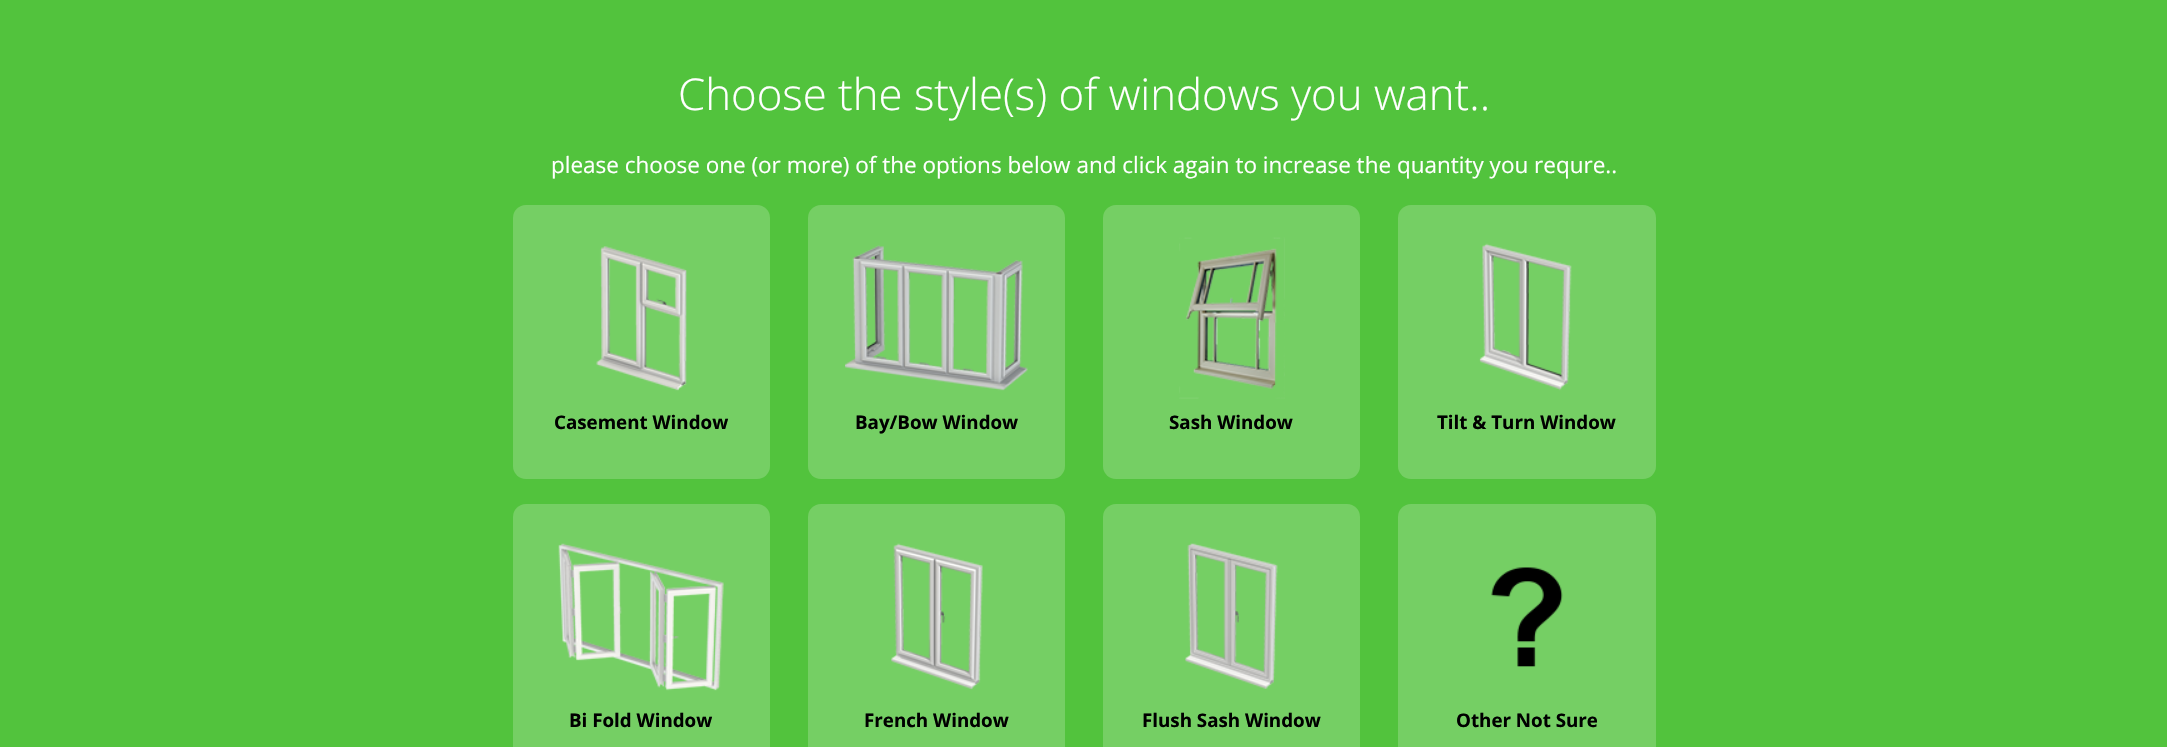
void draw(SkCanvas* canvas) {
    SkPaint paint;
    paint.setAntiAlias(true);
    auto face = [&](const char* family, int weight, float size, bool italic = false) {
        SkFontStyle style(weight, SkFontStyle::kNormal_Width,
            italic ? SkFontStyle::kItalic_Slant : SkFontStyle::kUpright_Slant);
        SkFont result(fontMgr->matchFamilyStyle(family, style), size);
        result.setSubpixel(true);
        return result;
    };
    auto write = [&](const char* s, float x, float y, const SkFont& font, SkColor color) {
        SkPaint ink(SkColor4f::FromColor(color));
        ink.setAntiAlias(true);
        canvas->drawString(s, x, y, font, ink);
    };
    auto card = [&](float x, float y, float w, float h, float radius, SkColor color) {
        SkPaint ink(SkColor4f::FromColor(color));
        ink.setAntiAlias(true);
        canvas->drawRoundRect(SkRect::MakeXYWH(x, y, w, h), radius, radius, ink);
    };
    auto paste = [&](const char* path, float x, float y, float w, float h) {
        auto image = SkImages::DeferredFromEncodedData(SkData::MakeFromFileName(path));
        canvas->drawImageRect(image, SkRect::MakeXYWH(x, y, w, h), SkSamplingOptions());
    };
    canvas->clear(SkColorSetRGB(82, 195, 61));
    auto kFont1 = face("Open Sans", 300, 43.75f);
    write("Choose the style(s) of windows you want..", 678, 110, kFont1, SK_ColorWHITE);
    auto kFont2 = face("Open Sans", 400, 22.5f);
    write("please choose one (or more) of the options below and click again to increase the quantity you requre..", 551, 173, kFont2, SK_ColorWHITE);
    card(513, 205, 257, 274, 13, SkColorSetRGB(117, 207, 100));
    paste("pic1.png", 596, 246, 91, 145);
    auto kFont3 = face("Open Sans", 700, 18.75f);
    write("Casement Window", 554, 429, kFont3, SK_ColorBLACK);
    card(808, 205, 257, 274, 13, SkColorSetRGB(117, 207, 100));
    paste("pic2.png", 845, 245, 183, 146);
    write("Bay/Bow Window", 855, 429, kFont3, SK_ColorBLACK);
    card(1103, 205, 257, 274, 13, SkColorSetRGB(117, 207, 100));
    paste("pic3.png", 1179, 237, 106, 162);
    write("Sash Window", 1169, 429, kFont3, SK_ColorBLACK);
    card(1398, 205, 258, 274, 13, SkColorSetRGB(117, 207, 100));
    paste("pic4.png", 1479, 243, 93, 148);
    write("Tilt & Turn Window", 1437, 429, kFont3, SK_ColorBLACK);
    card(513, 504, 257, 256, 13, SkColorSetRGB(117, 207, 100));
    paste("pic5.png", 558, 543, 166, 148);
    write("Bi Fold Window", 569, 727, kFont3, SK_ColorBLACK);
    card(808, 504, 257, 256, 13, SkColorSetRGB(117, 207, 100));
    paste("pic6.png", 891, 543, 92, 147);
    write("French Window", 864, 727, kFont3, SK_ColorBLACK);
    card(1103, 504, 257, 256, 13, SkColorSetRGB(117, 207, 100));
    paste("pic7.png", 1185, 543, 93, 146);
    write("Flush Sash Window", 1142, 727, kFont3, SK_ColorBLACK);
    card(1398, 504, 258, 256, 13, SkColorSetRGB(117, 207, 100));
    paste("pic8.png", 1491, 567, 72, 100);
    write("Other Not Sure", 1456, 727, kFont3, SK_ColorBLACK);
}
